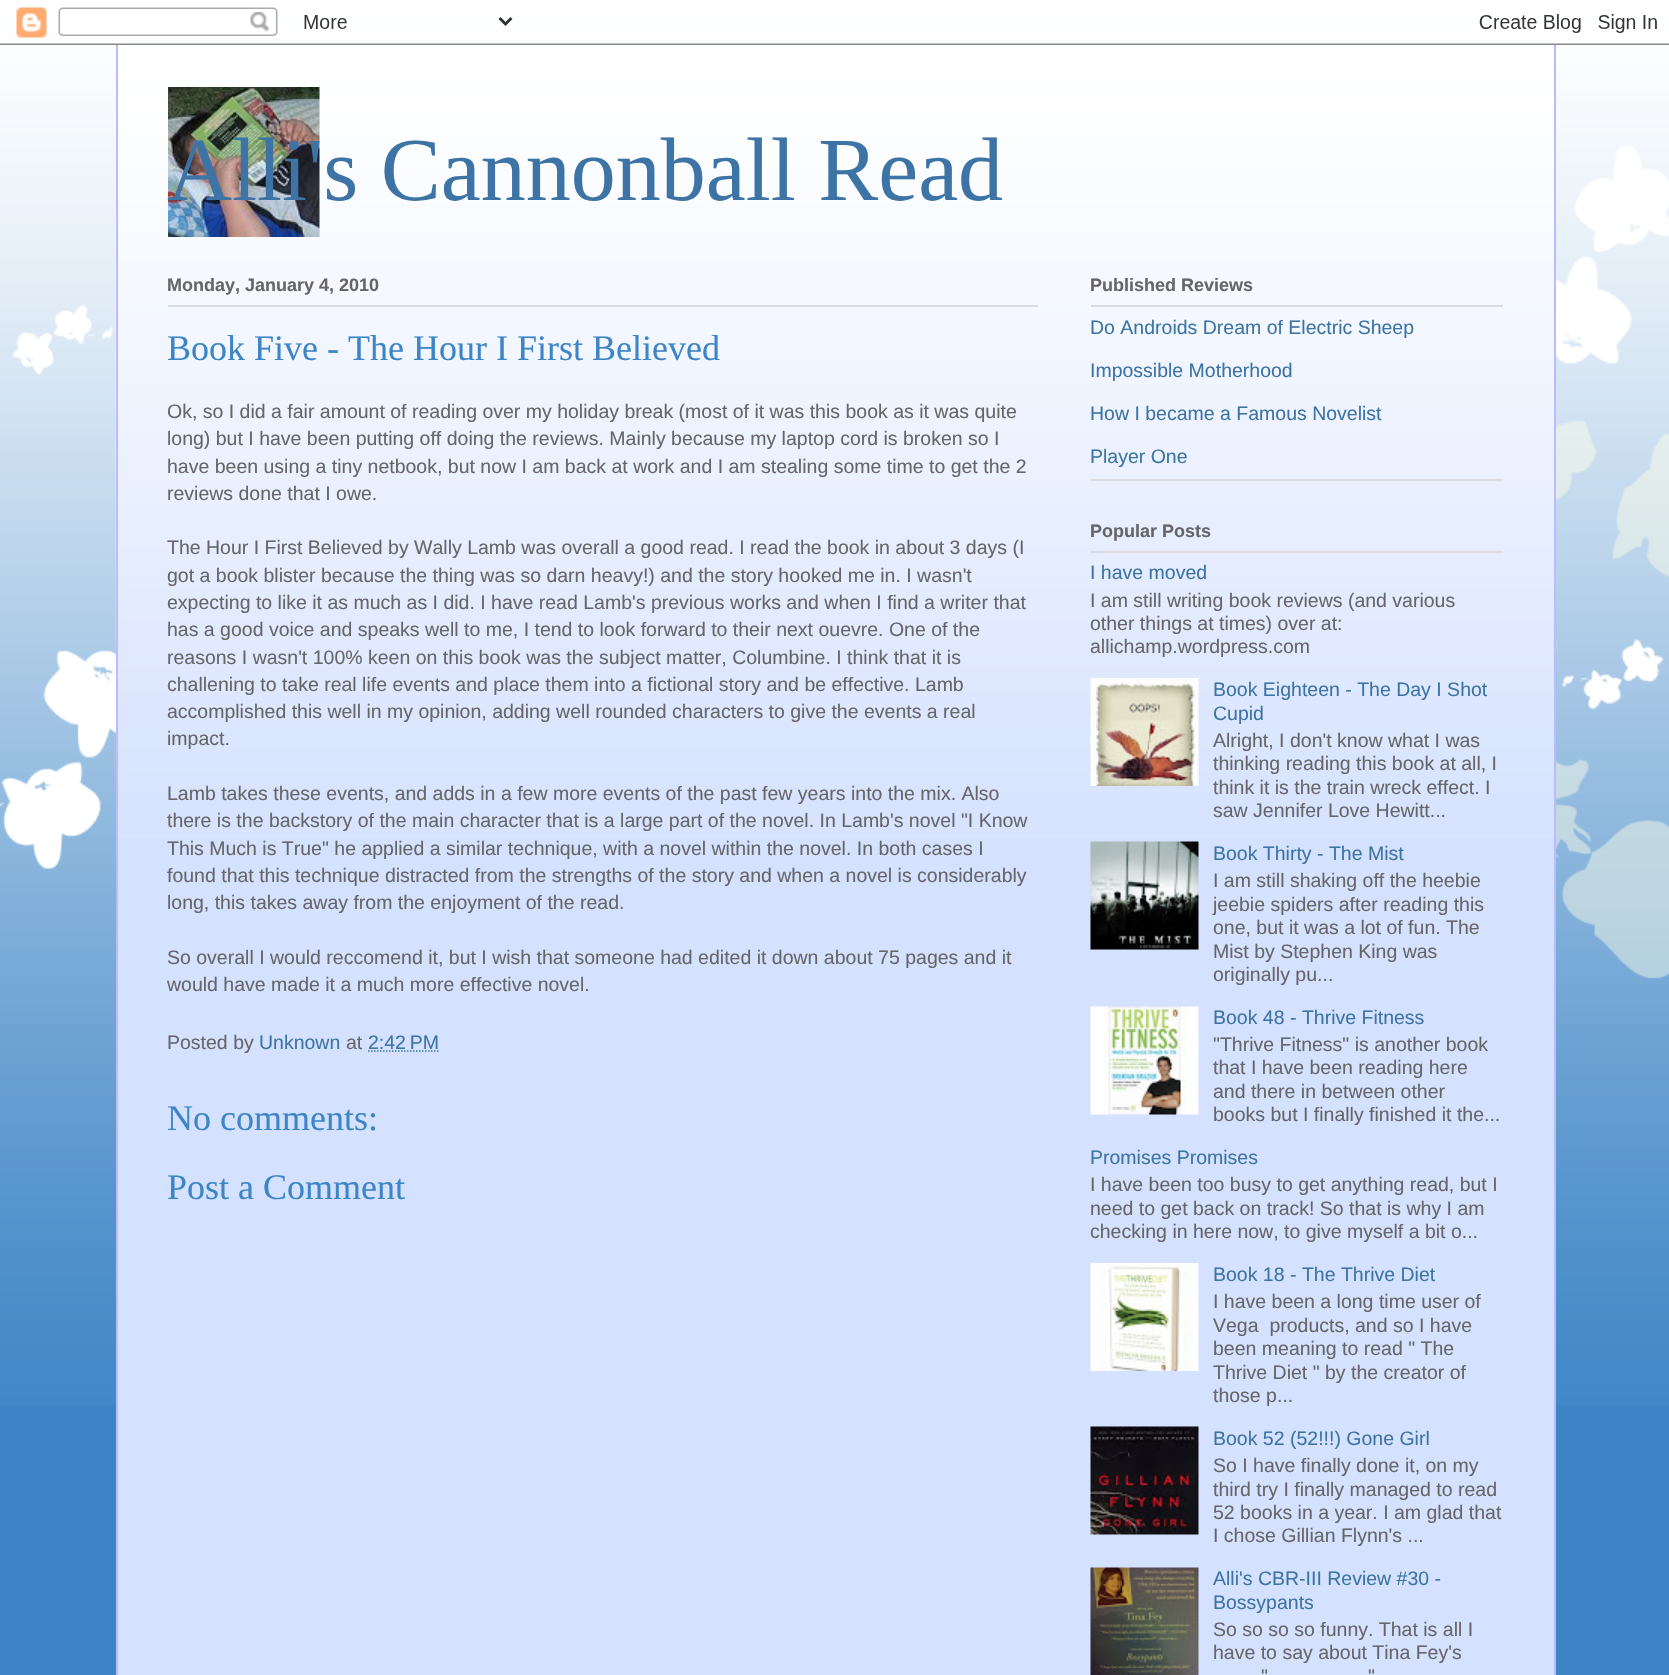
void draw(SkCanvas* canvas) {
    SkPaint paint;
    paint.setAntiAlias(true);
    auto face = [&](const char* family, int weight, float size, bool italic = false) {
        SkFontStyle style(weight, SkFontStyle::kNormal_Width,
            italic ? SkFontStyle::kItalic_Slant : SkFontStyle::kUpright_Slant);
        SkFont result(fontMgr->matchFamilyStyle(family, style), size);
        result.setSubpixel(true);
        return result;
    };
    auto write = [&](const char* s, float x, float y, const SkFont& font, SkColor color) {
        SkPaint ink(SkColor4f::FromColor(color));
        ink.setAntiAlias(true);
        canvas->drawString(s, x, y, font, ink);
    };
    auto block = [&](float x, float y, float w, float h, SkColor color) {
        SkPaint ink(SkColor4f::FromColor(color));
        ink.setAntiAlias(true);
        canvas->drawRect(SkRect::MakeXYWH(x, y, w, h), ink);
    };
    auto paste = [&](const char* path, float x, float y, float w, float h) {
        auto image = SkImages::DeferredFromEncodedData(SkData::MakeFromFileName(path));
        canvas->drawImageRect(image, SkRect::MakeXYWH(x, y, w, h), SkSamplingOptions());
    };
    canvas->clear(SkColorSetRGB(61, 133, 198));
    paste("pic1.png", 0, 0, 1669, 1405);
    paste("pic2.png", 0, 7, 1669, 38);
    block(118, 55, 1436, 1620, SkColorSetRGB(212, 225, 255));
    paste("pic3.png", 115, 45, 1439, 793);
    block(1554, 45, 2, 1630, SkColorSetRGB(187, 187, 255));
    block(116, 45, 2, 1630, SkColorSetRGB(187, 187, 255));
    paste("pic4.png", 168, 87, 152, 150);
    auto kFont1 = face("Liberation Serif", 400, 90);
    write("Alli's Cannonball Read", 167, 200, kFont1, SkColorSetRGB(61, 116, 165));
    block(168, 305, 870, 2, SkColorSetRGB(219, 219, 219));
    auto kFont2 = face("Liberation Sans", 700, 18);
    write("Monday, January 4, 2010", 167, 291, kFont2, SkColorSetRGB(102, 102, 102));
    auto kFont3 = face("Liberation Serif", 400, 36);
    write("Book Five - The Hour I First Believed", 167, 360, kFont3, SkColorSetRGB(61, 133, 198));
    auto kFont4 = face("Liberation Sans", 400, 19.5f);
    write("Ok, so I did a fair amount of reading over my holiday break (most of it was this book as it was quite", 167, 418, kFont4, SkColorSetRGB(102, 102, 102));
    write("long) but I have been putting off doing the reviews. Mainly because my laptop cord is broken so I", 167, 445, kFont4, SkColorSetRGB(102, 102, 102));
    write("have been using a tiny netbook, but now I am back at work and I am stealing some time to get the 2", 167, 473, kFont4, SkColorSetRGB(102, 102, 102));
    write("reviews done that I owe.", 167, 500, kFont4, SkColorSetRGB(102, 102, 102));
    write("The Hour I First Believed by Wally Lamb was overall a good read. I read the book in about 3 days (I", 167, 554, kFont4, SkColorSetRGB(102, 102, 102));
    write("got a book blister because the thing was so darn heavy!) and the story hooked me in. I wasn't", 167, 582, kFont4, SkColorSetRGB(102, 102, 102));
    write("expecting to like it as much as I did. I have read Lamb's previous works and when I find a writer that", 167, 609, kFont4, SkColorSetRGB(102, 102, 102));
    write("has a good voice and speaks well to me, I tend to look forward to their next ouevre. One of the", 167, 636, kFont4, SkColorSetRGB(102, 102, 102));
    write("reasons I wasn't 100% keen on this book was the subject matter, Columbine. I think that it is", 167, 664, kFont4, SkColorSetRGB(102, 102, 102));
    write("challening to take real life events and place them into a fictional story and be effective. Lamb", 167, 691, kFont4, SkColorSetRGB(102, 102, 102));
    write("accomplished this well in my opinion, adding well rounded characters to give the events a real", 167, 718, kFont4, SkColorSetRGB(102, 102, 102));
    write("impact.", 167, 745, kFont4, SkColorSetRGB(102, 102, 102));
    write("Lamb takes these events, and adds in a few more events of the past few years into the mix. Also", 167, 800, kFont4, SkColorSetRGB(102, 102, 102));
    write("there is the backstory of the main character that is a large part of the novel. In Lamb's novel \"I Know", 167, 827, kFont4, SkColorSetRGB(102, 102, 102));
    write("This Much is True\" he applied a similar technique, with a novel within the novel. In both cases I", 167, 855, kFont4, SkColorSetRGB(102, 102, 102));
    write("found that this technique distracted from the strengths of the story and when a novel is considerably", 167, 882, kFont4, SkColorSetRGB(102, 102, 102));
    write("long, this takes away from the enjoyment of the read.", 167, 909, kFont4, SkColorSetRGB(102, 102, 102));
    write("So overall I would reccomend it, but I wish that someone had edited it down about 75 pages and it", 167, 964, kFont4, SkColorSetRGB(102, 102, 102));
    write("would have made it a much more effective novel.", 167, 991, kFont4, SkColorSetRGB(102, 102, 102));
    write("Posted by", 167, 1049, kFont4, SkColorSetRGB(102, 102, 102));
    write("Unknown", 259, 1049, kFont4, SkColorSetRGB(61, 116, 165));
    write("at", 346, 1049, kFont4, SkColorSetRGB(102, 102, 102));
    write("2:42 PM", 368, 1049, kFont4, SkColorSetRGB(61, 116, 165));
    paint.setStyle(SkPaint::kStroke_Style);
    paint.setStrokeWidth(1.5f);
    paint.setColor(SkColorSetRGB(61, 116, 165));
    paint.setPathEffect(SkDashPathEffect::Make({{1.5f, 1.5f}}, 0));
    canvas->drawPath(SkPathBuilder().moveTo(368, 1051).lineTo(439, 1051).detach(), paint);
    paint.setPathEffect(nullptr);
    write("No comments:", 167, 1130, kFont3, SkColorSetRGB(61, 133, 198));
    write("Post a Comment", 167, 1199, kFont3, SkColorSetRGB(61, 133, 198));
    block(1091, 479, 412, 2, SkColorSetRGB(219, 219, 219));
    block(1091, 305, 412, 2, SkColorSetRGB(219, 219, 219));
    write("Published Reviews", 1090, 291, kFont2, SkColorSetRGB(102, 102, 102));
    write("Do Androids Dream of Electric Sheep", 1090, 334, kFont4, SkColorSetRGB(61, 116, 165));
    write("Impossible Motherhood", 1090, 377, kFont4, SkColorSetRGB(61, 116, 165));
    write("How I became a Famous Novelist", 1090, 420, kFont4, SkColorSetRGB(61, 116, 165));
    write("Player One", 1090, 463, kFont4, SkColorSetRGB(61, 116, 165));
    block(1091, 551, 412, 2, SkColorSetRGB(219, 219, 219));
    write("Popular Posts", 1090, 537, kFont2, SkColorSetRGB(102, 102, 102));
    write("I have moved", 1090, 579, kFont4, SkColorSetRGB(61, 116, 165));
    write("I am still writing book reviews (and various", 1090, 607, kFont4, SkColorSetRGB(102, 102, 102));
    write("other things at times) over at:", 1090, 630, kFont4, SkColorSetRGB(102, 102, 102));
    write("allichamp.wordpress.com", 1090, 653, kFont4, SkColorSetRGB(102, 102, 102));
    paste("pic5.png", 1090, 678, 109, 108);
    write("Book Eighteen - The Day I Shot", 1213, 696, kFont4, SkColorSetRGB(61, 116, 165));
    write("Cupid", 1213, 720, kFont4, SkColorSetRGB(61, 116, 165));
    write("Alright, I don't know what I was", 1213, 747, kFont4, SkColorSetRGB(102, 102, 102));
    write("thinking reading this book at all, I", 1213, 770, kFont4, SkColorSetRGB(102, 102, 102));
    write("think it is the train wreck effect. I", 1213, 794, kFont4, SkColorSetRGB(102, 102, 102));
    write("saw Jennifer Love Hewitt...", 1213, 817, kFont4, SkColorSetRGB(102, 102, 102));
    paste("pic6.png", 1090, 841, 109, 109);
    write("Book Thirty - The Mist", 1213, 860, kFont4, SkColorSetRGB(61, 116, 165));
    write("I am still shaking off the heebie", 1213, 887, kFont4, SkColorSetRGB(102, 102, 102));
    write("jeebie spiders after reading this", 1213, 911, kFont4, SkColorSetRGB(102, 102, 102));
    write("one, but it was a lot of fun. The", 1213, 934, kFont4, SkColorSetRGB(102, 102, 102));
    write("Mist by Stephen King was", 1213, 958, kFont4, SkColorSetRGB(102, 102, 102));
    write("originally pu...", 1213, 981, kFont4, SkColorSetRGB(102, 102, 102));
    paste("pic7.png", 1090, 1006, 109, 109);
    write("Book 48 - Thrive Fitness", 1213, 1024, kFont4, SkColorSetRGB(61, 116, 165));
    write("\"Thrive Fitness\" is another book", 1213, 1051, kFont4, SkColorSetRGB(102, 102, 102));
    write("that I have been reading here", 1213, 1074, kFont4, SkColorSetRGB(102, 102, 102));
    write("and there in between other", 1213, 1098, kFont4, SkColorSetRGB(102, 102, 102));
    write("books but I finally finished it the...", 1213, 1121, kFont4, SkColorSetRGB(102, 102, 102));
    write("Promises Promises", 1090, 1164, kFont4, SkColorSetRGB(61, 116, 165));
    write("I have been too busy to get anything read, but I", 1090, 1191, kFont4, SkColorSetRGB(102, 102, 102));
    write("need to get back on track! So that is why I am", 1090, 1215, kFont4, SkColorSetRGB(102, 102, 102));
    write("checking in here now, to give myself a bit o...", 1090, 1238, kFont4, SkColorSetRGB(102, 102, 102));
    paste("pic8.png", 1090, 1263, 109, 108);
    write("Book 18 - The Thrive Diet", 1213, 1281, kFont4, SkColorSetRGB(61, 116, 165));
    write("I have been a long time user of", 1213, 1308, kFont4, SkColorSetRGB(102, 102, 102));
    write("Vega  products, and so I have", 1213, 1332, kFont4, SkColorSetRGB(102, 102, 102));
    write("been meaning to read \" The", 1213, 1355, kFont4, SkColorSetRGB(102, 102, 102));
    write("Thrive Diet \" by the creator of", 1213, 1379, kFont4, SkColorSetRGB(102, 102, 102));
    write("those p...", 1213, 1402, kFont4, SkColorSetRGB(102, 102, 102));
    paste("pic9.png", 1090, 1426, 109, 109);
    write("Book 52 (52!!!) Gone Girl", 1213, 1445, kFont4, SkColorSetRGB(61, 116, 165));
    write("So I have finally done it, on my", 1213, 1472, kFont4, SkColorSetRGB(102, 102, 102));
    write("third try I finally managed to read", 1213, 1496, kFont4, SkColorSetRGB(102, 102, 102));
    write("52 books in a year. I am glad that", 1213, 1519, kFont4, SkColorSetRGB(102, 102, 102));
    write("I chose Gillian Flynn's ...", 1213, 1542, kFont4, SkColorSetRGB(102, 102, 102));
    paste("pic10.png", 1090, 1567, 109, 108);
    write("Alli's CBR-III Review #30 -", 1213, 1585, kFont4, SkColorSetRGB(61, 116, 165));
    write("Bossypants", 1213, 1609, kFont4, SkColorSetRGB(61, 116, 165));
    write("So so so so funny. That is all I", 1213, 1636, kFont4, SkColorSetRGB(102, 102, 102));
    write("have to say about Tina Fey's", 1213, 1659, kFont4, SkColorSetRGB(102, 102, 102));
    write("\"", 1261, 1683, kFont4, SkColorSetRGB(102, 102, 102));
    write("\"", 1368, 1683, kFont4, SkColorSetRGB(102, 102, 102));
}
